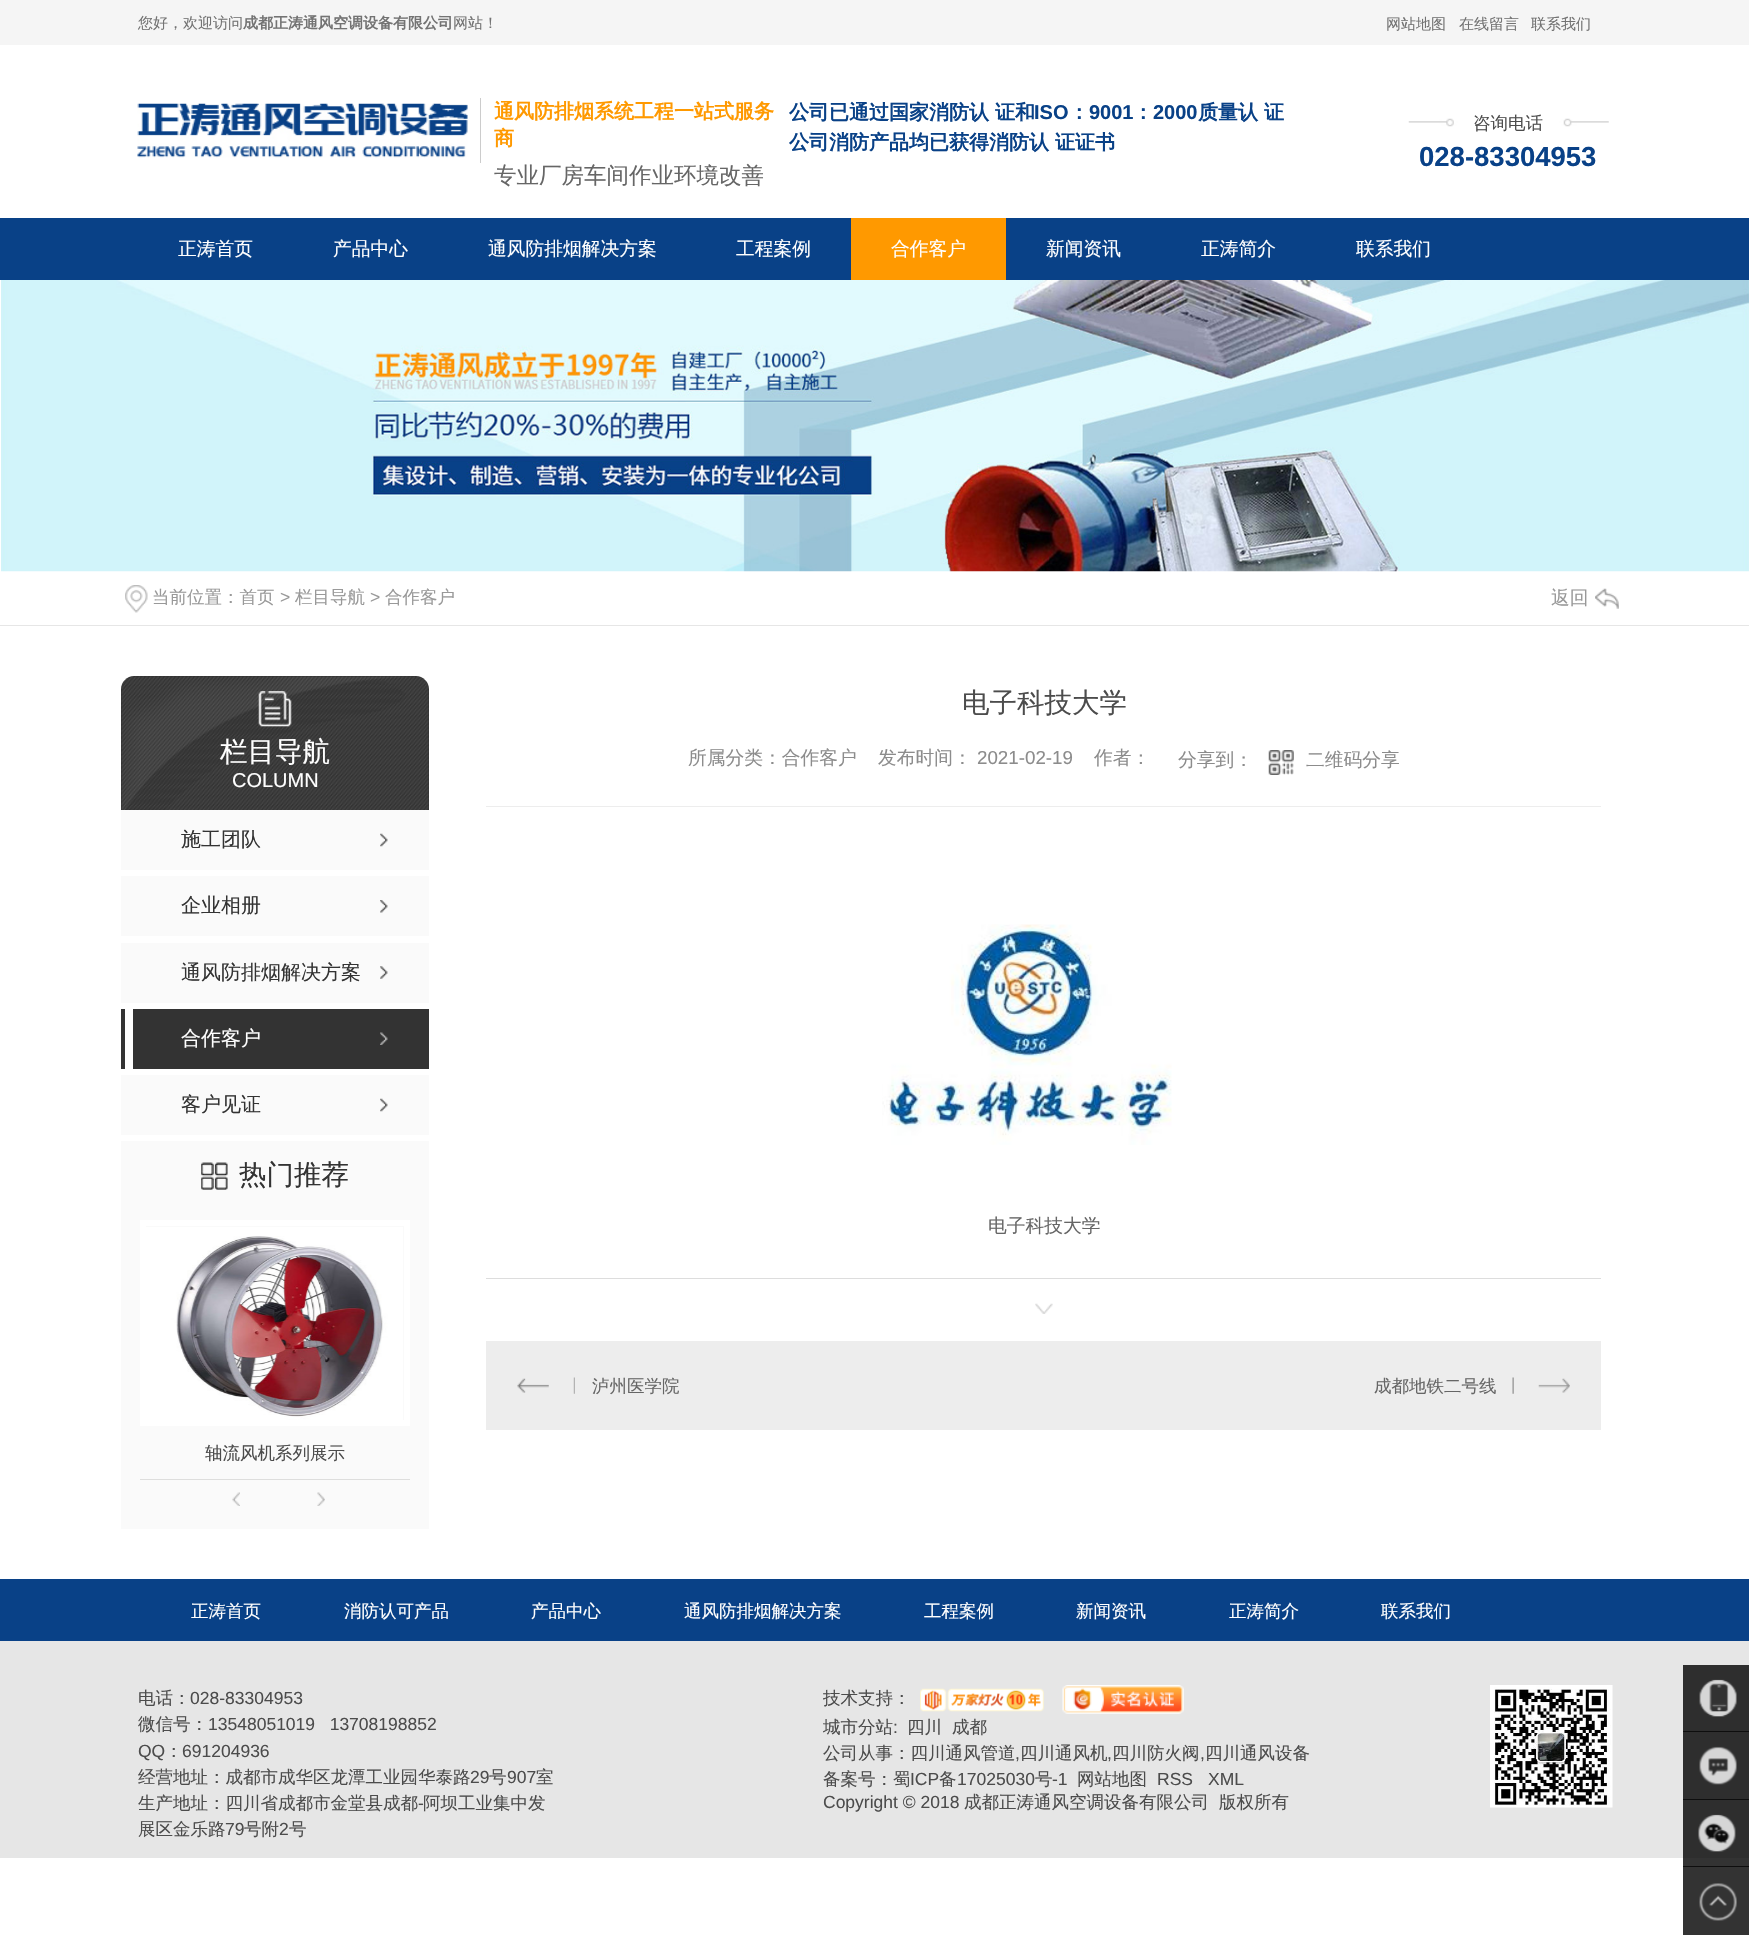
void draw(SkCanvas* canvas) {
    SkPaint paint;
    paint.setAntiAlias(true);
    auto face = [&](const char* family, int weight, float size, bool italic = false) {
        SkFontStyle style(weight, SkFontStyle::kNormal_Width,
            italic ? SkFontStyle::kItalic_Slant : SkFontStyle::kUpright_Slant);
        SkFont result(fontMgr->matchFamilyStyle(family, style), size);
        result.setSubpixel(true);
        return result;
    };
    auto write = [&](const char* s, float x, float y, const SkFont& font, SkColor color) {
        SkPaint ink(SkColor4f::FromColor(color));
        ink.setAntiAlias(true);
        canvas->drawString(s, x, y, font, ink);
    };
    auto block = [&](float x, float y, float w, float h, SkColor color) {
        SkPaint ink(SkColor4f::FromColor(color));
        ink.setAntiAlias(true);
        canvas->drawRect(SkRect::MakeXYWH(x, y, w, h), ink);
    };
    auto paste = [&](const char* path, float x, float y, float w, float h) {
        auto image = SkImages::DeferredFromEncodedData(SkData::MakeFromFileName(path));
        canvas->drawImageRect(image, SkRect::MakeXYWH(x, y, w, h), SkSamplingOptions());
    };
    canvas->clear(SK_ColorWHITE);
    block(1683, 1858, 66, 77, SkColorSetRGB(51, 51, 51));
    block(0, 0, 1749, 45, SkColorSetRGB(245, 245, 245));
    auto kFont1 = face("WenQuanYi Zen Hei", 500, 15);
    write("您好，欢迎访问", 138, 28, kFont1, SkColorSetRGB(115, 115, 115));
    auto kFont2 = face("WenQuanYi Zen Hei", 700, 15);
    write("成都正涛通风空调设备有限公司", 243, 28, kFont2, SkColorSetRGB(115, 115, 115));
    write("网站！", 453, 28, kFont1, SkColorSetRGB(115, 115, 115));
    write("网站地图", 1386, 29, kFont1, SkColorSetRGB(115, 115, 115));
    write("在线留言", 1459, 29, kFont1, SkColorSetRGB(115, 115, 115));
    write("联系我们", 1531, 29, kFont1, SkColorSetRGB(115, 115, 115));
    paste("pic1.png", 137, 103, 331, 55);
    block(480, 98, 1, 65, SkColorSetRGB(204, 204, 204));
    auto kFont3 = face("WenQuanYi Zen Hei", 700, 20);
    write("通风防排烟系统工程一站式服务", 494, 118, kFont3, SkColorSetRGB(255, 153, 0));
    write("商", 494, 145, kFont3, SkColorSetRGB(255, 153, 0));
    auto kFont4 = face("WenQuanYi Zen Hei", 500, 22.5f);
    write("专业厂房车间作业环境改善", 494, 183, kFont4, SkColorSetRGB(102, 102, 102));
    write("公司已通过国家消防认 证和", 789, 119, kFont3, SkColorSetRGB(9, 65, 135));
    auto kFont5 = face("Liberation Sans", 700, 20);
    write("ISO", 1034, 119, kFont5, SkColorSetRGB(9, 65, 135));
    write("：", 1069, 119, kFont3, SkColorSetRGB(9, 65, 135));
    write("9001", 1089, 119, kFont5, SkColorSetRGB(9, 65, 135));
    write("：", 1133, 119, kFont3, SkColorSetRGB(9, 65, 135));
    write("2000", 1153, 119, kFont5, SkColorSetRGB(9, 65, 135));
    write("质量认 证", 1198, 119, kFont3, SkColorSetRGB(9, 65, 135));
    write("公司消防产品均已获得消防认 证证书", 789, 149, kFont3, SkColorSetRGB(9, 65, 135));
    paste("pic2.png", 1408, 118, 201, 9);
    auto kFont6 = face("WenQuanYi Zen Hei", 500, 17.5f);
    write("咨询电话", 1473, 129, kFont6, SkColorSetRGB(76, 76, 76));
    auto kFont7 = face("Liberation Sans", 700, 27.5f);
    write("028-83304953", 1419, 166, kFont7, SkColorSetRGB(9, 65, 135));
    block(0, 218, 1749, 62, SkColorSetRGB(9, 65, 135));
    auto kFont8 = face("WenQuanYi Zen Hei", 500, 18.75f);
    write("正涛首页", 178, 255, kFont8, SK_ColorWHITE);
    write("产品中心", 333, 255, kFont8, SK_ColorWHITE);
    write("通风防排烟解决方案", 488, 255, kFont8, SK_ColorWHITE);
    write("工程案例", 736, 255, kFont8, SK_ColorWHITE);
    block(851, 218, 155, 62, SkColorSetRGB(255, 153, 0));
    write("合作客户", 891, 255, kFont8, SK_ColorWHITE);
    write("新闻资讯", 1046, 255, kFont8, SK_ColorWHITE);
    write("正涛简介", 1201, 255, kFont8, SK_ColorWHITE);
    write("联系我们", 1356, 255, kFont8, SK_ColorWHITE);
    paste("pic3.png", 1, 280, 1748, 292);
    block(0, 625, 1749, 1, SkColorSetRGB(230, 230, 230));
    paste("pic4.png", 125, 585, 23, 28);
    write("当前位置：首页", 152, 603, kFont6, SkColorSetRGB(153, 153, 153));
    auto kFont9 = face("Liberation Sans", 400, 17.5f);
    write(">", 280, 603, kFont9, SkColorSetRGB(153, 153, 153));
    write("栏目导航", 295, 603, kFont6, SkColorSetRGB(153, 153, 153));
    write(">", 370, 603, kFont9, SkColorSetRGB(153, 153, 153));
    write("合作客户", 385, 603, kFont6, SkColorSetRGB(153, 153, 153));
    write("返回", 1551, 604, kFont8, SkColorSetRGB(153, 153, 153));
    paste("pic5.png", 1595, 588, 24, 21);
    paint.setColor(SkColorSetRGB(51, 51, 51));
    canvas->drawPath(SkPathBuilder().moveTo(134, 676).lineTo(416, 676).cubicTo(423, 676, 429, 682, 429, 689).lineTo(429, 816).lineTo(121, 816).lineTo(121, 689).cubicTo(121, 682, 127, 676, 134, 676).close().detach(), paint);
    paste("pic6.png", 121, 676, 308, 134);
    paste("pic7.png", 258, 691, 34, 36);
    auto kFont10 = face("WenQuanYi Zen Hei", 500, 27.5f);
    write("栏目导航", 220, 761, kFont10, SK_ColorWHITE);
    auto kFont11 = face("Liberation Sans", 400, 20);
    write("COLUMN", 232, 787, kFont11, SK_ColorWHITE);
    block(121, 810, 308, 60, SkColorSetRGB(250, 250, 250));
    paste("pic8.png", 380, 833, 8, 14);
    auto kFont12 = face("WenQuanYi Zen Hei", 500, 20);
    write("施工团队", 181, 846, kFont12, SkColorSetRGB(51, 51, 51));
    block(121, 876, 308, 60, SkColorSetRGB(250, 250, 250));
    paste("pic9.png", 380, 900, 8, 13);
    write("企业相册", 181, 912, kFont12, SkColorSetRGB(51, 51, 51));
    block(121, 943, 308, 60, SkColorSetRGB(250, 250, 250));
    paste("pic10.png", 380, 966, 8, 13);
    write("通风防排烟解决方案", 181, 979, kFont12, SkColorSetRGB(51, 51, 51));
    block(121, 1009, 308, 60, SkColorSetRGB(51, 51, 51));
    block(125, 1009, 8, 60, SK_ColorWHITE);
    paste("pic11.png", 380, 1032, 8, 13);
    write("合作客户", 181, 1045, kFont12, SK_ColorWHITE);
    block(121, 1075, 308, 60, SkColorSetRGB(250, 250, 250));
    paste("pic8.png", 380, 1098, 8, 14);
    write("客户见证", 181, 1111, kFont12, SkColorSetRGB(51, 51, 51));
    block(121, 1141, 308, 388, SkColorSetRGB(250, 250, 250));
    paste("pic12.png", 201, 1162, 27, 28);
    write("热门推荐", 239, 1184, kFont10, SkColorSetRGB(51, 51, 51));
    paint.setStyle(SkPaint::kStroke_Style);
    paint.setStrokeWidth(6);
    paint.setColor(SK_ColorWHITE);
    canvas->drawRect(SkRect::MakeXYWH(143, 1223, 264, 200), paint);
    paste("pic13.png", 146, 1227, 257, 193);
    block(140, 1479, 270, 1, SkColorSetRGB(222, 222, 221));
    write("轴流风机系列展示", 205, 1459, kFont6, SkColorSetRGB(76, 76, 76));
    paste("pic14.png", 232, 1492, 8, 14);
    paste("pic15.png", 317, 1492, 8, 14);
    write("电子科技大学", 962, 712, kFont10, SkColorSetRGB(76, 76, 76));
    write("所属分类：合作客户", 688, 764, kFont8, SkColorSetRGB(140, 140, 140));
    write("发布时间：", 878, 764, kFont8, SkColorSetRGB(140, 140, 140));
    auto kFont13 = face("Liberation Sans", 400, 18.75f);
    write("2021-02-19", 977, 764, kFont13, SkColorSetRGB(140, 140, 140));
    write("作者：", 1094, 764, kFont8, SkColorSetRGB(140, 140, 140));
    write("分享到：", 1178, 766, kFont8, SkColorSetRGB(140, 140, 140));
    paste("pic16.png", 1268, 750, 26, 25);
    write("二维码分享", 1306, 766, kFont8, SkColorSetRGB(140, 140, 140));
    block(486, 806, 1115, 1, SkColorSetRGB(237, 237, 237));
    block(486, 1278, 1115, 1, SkColorSetRGB(221, 221, 221));
    paste("pic17.png", 882, 924, 290, 221);
    write("电子科技大学", 988, 1232, kFont8, SkColorSetRGB(102, 102, 102));
    paste("pic18.png", 1035, 1303, 18, 11);
    block(486, 1341, 1115, 89, SkColorSetRGB(237, 237, 237));
    paste("pic19.png", 517, 1377, 58, 17);
    write("泸州医学院", 592, 1392, kFont6, SkColorSetRGB(102, 102, 102));
    paste("pic20.png", 1512, 1377, 58, 17);
    write("成都地铁二号线", 1374, 1392, kFont6, SkColorSetRGB(102, 102, 102));
    block(0, 1641, 1749, 217, SkColorSetRGB(230, 230, 230));
    block(1683, 1800, 66, 58, SkColorSetRGB(46, 46, 46));
    block(1683, 1665, 66, 134, SkColorSetRGB(46, 46, 46));
    block(0, 1579, 1749, 62, SkColorSetRGB(9, 65, 135));
    write("正涛首页", 191, 1617, kFont6, SK_ColorWHITE);
    write("消防认可产品", 344, 1617, kFont6, SK_ColorWHITE);
    write("产品中心", 531, 1617, kFont6, SK_ColorWHITE);
    write("通风防排烟解决方案", 684, 1617, kFont6, SK_ColorWHITE);
    write("工程案例", 924, 1617, kFont6, SK_ColorWHITE);
    write("新闻资讯", 1076, 1617, kFont6, SK_ColorWHITE);
    write("正涛简介", 1229, 1617, kFont6, SK_ColorWHITE);
    write("联系我们", 1381, 1617, kFont6, SK_ColorWHITE);
    write("电话：", 138, 1704, kFont6, SkColorSetRGB(76, 76, 76));
    write("028-83304953", 190, 1704, kFont9, SkColorSetRGB(76, 76, 76));
    write("微信号：", 138, 1730, kFont6, SkColorSetRGB(76, 76, 76));
    write("13548051019   13708198852", 208, 1730, kFont9, SkColorSetRGB(76, 76, 76));
    write("QQ", 138, 1757, kFont9, SkColorSetRGB(76, 76, 76));
    write("：", 165, 1757, kFont6, SkColorSetRGB(76, 76, 76));
    write("691204936", 182, 1757, kFont9, SkColorSetRGB(76, 76, 76));
    write("经营地址：成都市成华区龙潭工业园华泰路", 138, 1783, kFont6, SkColorSetRGB(76, 76, 76));
    write("29", 470, 1783, kFont9, SkColorSetRGB(76, 76, 76));
    write("号", 489, 1783, kFont6, SkColorSetRGB(76, 76, 76));
    write("907", 507, 1783, kFont9, SkColorSetRGB(76, 76, 76));
    write("室", 536, 1783, kFont6, SkColorSetRGB(76, 76, 76));
    write("生产地址：四川省成都市金堂县成都", 138, 1809, kFont6, SkColorSetRGB(76, 76, 76));
    write("-", 418, 1809, kFont9, SkColorSetRGB(76, 76, 76));
    write("阿坝工业集中发", 423, 1809, kFont6, SkColorSetRGB(76, 76, 76));
    write("展区金乐路", 138, 1835, kFont6, SkColorSetRGB(76, 76, 76));
    write("79", 225, 1835, kFont9, SkColorSetRGB(76, 76, 76));
    write("号附", 244, 1835, kFont6, SkColorSetRGB(76, 76, 76));
    write("2", 279, 1835, kFont9, SkColorSetRGB(76, 76, 76));
    write("号", 289, 1835, kFont6, SkColorSetRGB(76, 76, 76));
    write("技术支持：", 823, 1704, kFont6, SkColorSetRGB(76, 76, 76));
    paste("pic21.png", 920, 1688, 124, 24);
    paste("pic22.png", 1062, 1685, 122, 29);
    write("城市分站", 823, 1733, kFont6, SkColorSetRGB(76, 76, 76));
    write(":", 893, 1733, kFont9, SkColorSetRGB(76, 76, 76));
    write("四川", 907, 1733, kFont6, SkColorSetRGB(76, 76, 76));
    write("成都", 952, 1733, kFont6, SkColorSetRGB(76, 76, 76));
    write("公司从事：四川通风管道", 823, 1759, kFont6, SkColorSetRGB(76, 76, 76));
    write(",", 1015, 1759, kFont9, SkColorSetRGB(76, 76, 76));
    write("四川通风机", 1020, 1759, kFont6, SkColorSetRGB(76, 76, 76));
    write(",", 1107, 1759, kFont9, SkColorSetRGB(76, 76, 76));
    write("四川防火阀", 1112, 1759, kFont6, SkColorSetRGB(76, 76, 76));
    write(",", 1200, 1759, kFont9, SkColorSetRGB(76, 76, 76));
    write("四川通风设备", 1205, 1759, kFont6, SkColorSetRGB(76, 76, 76));
    write("备案号：蜀", 823, 1785, kFont6, SkColorSetRGB(76, 76, 76));
    write("ICP", 910, 1785, kFont9, SkColorSetRGB(76, 76, 76));
    write("备", 939, 1785, kFont6, SkColorSetRGB(76, 76, 76));
    write("17025030", 957, 1785, kFont9, SkColorSetRGB(76, 76, 76));
    write("号", 1035, 1785, kFont6, SkColorSetRGB(76, 76, 76));
    write("-1", 1052, 1785, kFont9, SkColorSetRGB(76, 76, 76));
    write("网站地图", 1077, 1785, kFont6, SkColorSetRGB(76, 76, 76));
    write("RSS", 1157, 1785, kFont9, SkColorSetRGB(76, 76, 76));
    write("XML", 1208, 1785, kFont9, SkColorSetRGB(76, 76, 76));
    write("Copyright © 2018", 823, 1808, kFont9, SkColorSetRGB(76, 76, 76));
    write("成都正涛通风空调设备有限公司", 964, 1808, kFont6, SkColorSetRGB(76, 76, 76));
    write("版权所有", 1219, 1808, kFont6, SkColorSetRGB(76, 76, 76));
    paste("pic23.png", 1490, 1685, 123, 123);
    block(1683, 1731, 66, 1, SkColorSetRGB(14, 14, 14));
    paste("pic24.png", 1699, 1679, 38, 38);
    block(1683, 1799, 66, 1, SkColorSetRGB(14, 14, 14));
    paste("pic25.png", 1699, 1746, 38, 39);
    block(1683, 1866, 66, 1, SkColorSetRGB(14, 14, 14));
    paste("pic26.png", 1698, 1814, 38, 38);
    paste("pic27.png", 1699, 1883, 38, 38);
}
